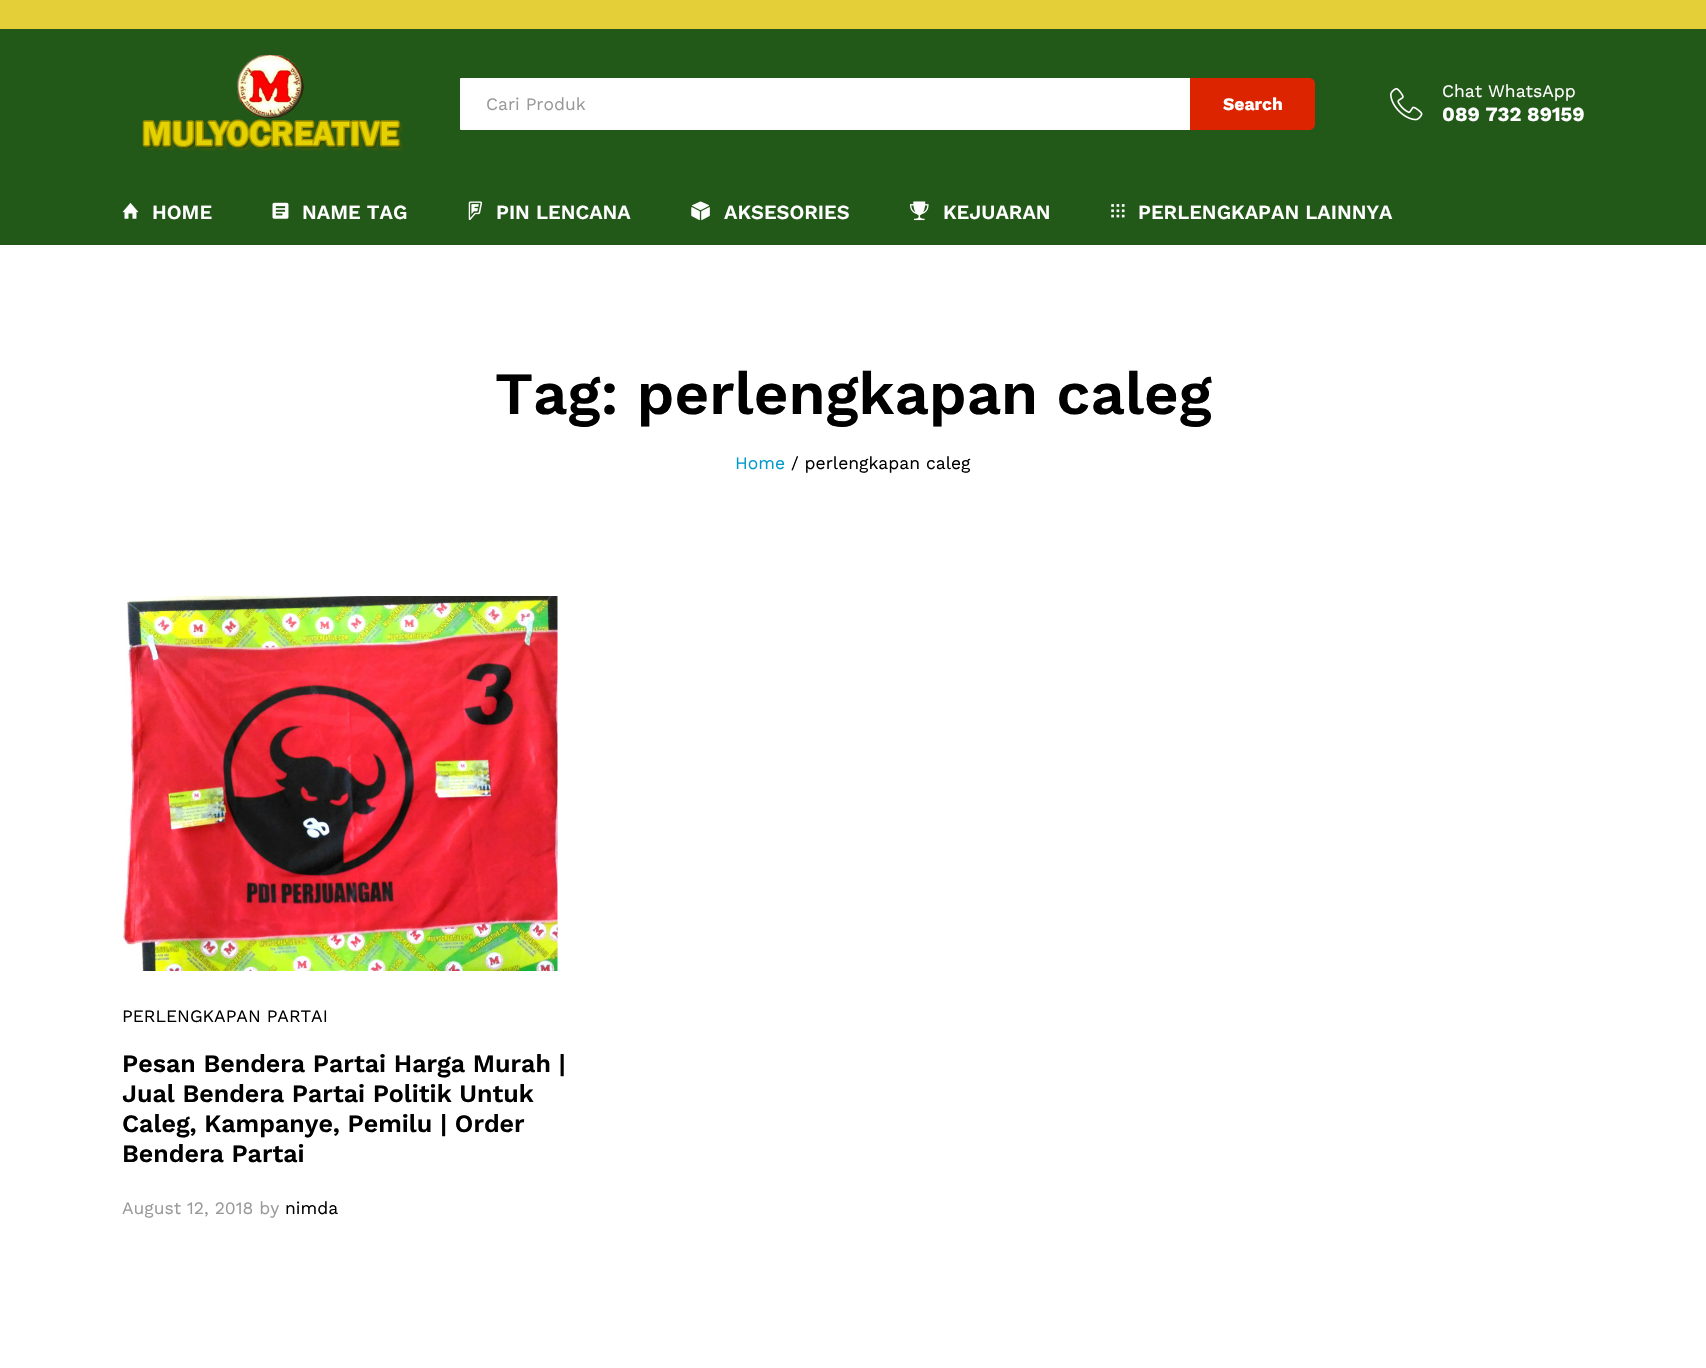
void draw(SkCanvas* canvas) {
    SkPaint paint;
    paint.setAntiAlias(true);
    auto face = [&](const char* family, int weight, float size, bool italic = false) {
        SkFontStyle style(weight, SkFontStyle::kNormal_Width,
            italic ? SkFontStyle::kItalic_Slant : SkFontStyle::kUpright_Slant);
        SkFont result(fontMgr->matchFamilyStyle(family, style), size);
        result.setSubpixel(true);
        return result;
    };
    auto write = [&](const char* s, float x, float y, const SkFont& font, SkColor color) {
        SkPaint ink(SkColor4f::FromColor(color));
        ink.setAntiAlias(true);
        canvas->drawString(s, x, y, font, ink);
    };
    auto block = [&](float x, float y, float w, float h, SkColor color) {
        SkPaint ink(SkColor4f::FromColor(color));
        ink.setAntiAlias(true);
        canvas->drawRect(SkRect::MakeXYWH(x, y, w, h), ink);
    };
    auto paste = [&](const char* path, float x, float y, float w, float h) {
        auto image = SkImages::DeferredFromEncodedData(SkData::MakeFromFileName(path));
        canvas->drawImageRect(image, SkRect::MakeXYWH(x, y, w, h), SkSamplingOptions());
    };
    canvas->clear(SK_ColorWHITE);
    block(0, 0, 1706, 29, SkColorSetRGB(228, 207, 56));
    block(0, 29, 1706, 216, SkColorSetRGB(34, 88, 24));
    paste("pic1.png", 142, 55, 261, 96);
    paint.setColor(SK_ColorWHITE);
    canvas->drawPath(SkPathBuilder().moveTo(461, 78).lineTo(461, 130).cubicTo(460.5f, 130, 460, 129.5f, 460, 129).lineTo(460, 79).cubicTo(460, 78.5f, 460.5f, 78, 461, 78).close().detach(), paint);
    block(461, 78, 729, 52, SK_ColorWHITE);
    auto kFont1 = face("Work Sans", 400, 17.5f);
    write("Cari Produk", 486, 110, kFont1, SkColorSetRGB(153, 153, 153));
    paint.setColor(SkColorSetRGB(221, 36, 0));
    canvas->drawPath(SkPathBuilder().moveTo(1190, 78).lineTo(1309, 78).cubicTo(1312.5f, 78, 1315, 80.5f, 1315, 84).lineTo(1315, 124).cubicTo(1315, 127.5f, 1312.5f, 130, 1309, 130).lineTo(1190, 130).close().detach(), paint);
    auto kFont2 = face("Work Sans", 700, 17.5f);
    write("Search", 1223, 110, kFont2, SK_ColorWHITE);
    paste("pic2.png", 1390, 87, 33, 34);
    write("Chat WhatsApp", 1442, 97, kFont1, SK_ColorWHITE);
    auto kFont3 = face("Work Sans", 700, 20);
    write("089 732 89159", 1442, 121, kFont3, SK_ColorWHITE);
    paste("pic3.png", 122, 202, 17, 17);
    auto kFont4 = face("Work Sans", 600, 20);
    write("HOME", 152, 219, kFont4, SK_ColorWHITE);
    paste("pic4.png", 272, 202, 17, 17);
    write("NAME TAG", 302, 219, kFont4, SK_ColorWHITE);
    paste("pic5.png", 468, 201, 14, 20);
    write("PIN LENCANA", 496, 219, kFont4, SK_ColorWHITE);
    paste("pic6.png", 691, 201, 19, 20);
    write("AKSESORIES", 724, 219, kFont4, SK_ColorWHITE);
    paste("pic7.png", 910, 201, 19, 20);
    write("KEJUARAN", 943, 219, kFont4, SK_ColorWHITE);
    paste("pic8.png", 1111, 204, 14, 14);
    write("PERLENGKAPAN LAINNYA", 1138, 219, kFont4, SK_ColorWHITE);
    auto kFont5 = face("Work Sans", 600, 60);
    write("Tag: perlengkapan caleg", 495, 414, kFont5, SK_ColorBLACK);
    write("Home", 735, 469, kFont1, SkColorSetRGB(0, 153, 204));
    write("/ perlengkapan caleg", 791, 469, kFont1, SK_ColorBLACK);
    paste("pic9.png", 122, 596, 436, 375);
    write("PERLENGKAPAN PARTAI", 122, 1022, kFont1, SK_ColorBLACK);
    auto kFont6 = face("Work Sans", 600, 25);
    write("Pesan Bendera Partai Harga Murah |", 122, 1072, kFont6, SK_ColorBLACK);
    write("Jual Bendera Partai Politik Untuk", 122, 1102, kFont6, SK_ColorBLACK);
    write("Caleg, Kampanye, Pemilu | Order", 122, 1132, kFont6, SK_ColorBLACK);
    write("Bendera Partai", 122, 1162, kFont6, SK_ColorBLACK);
    write("August 12, 2018 by", 122, 1214, kFont1, SkColorSetRGB(153, 153, 153));
    write("nimda", 285, 1214, kFont1, SK_ColorBLACK);
}
